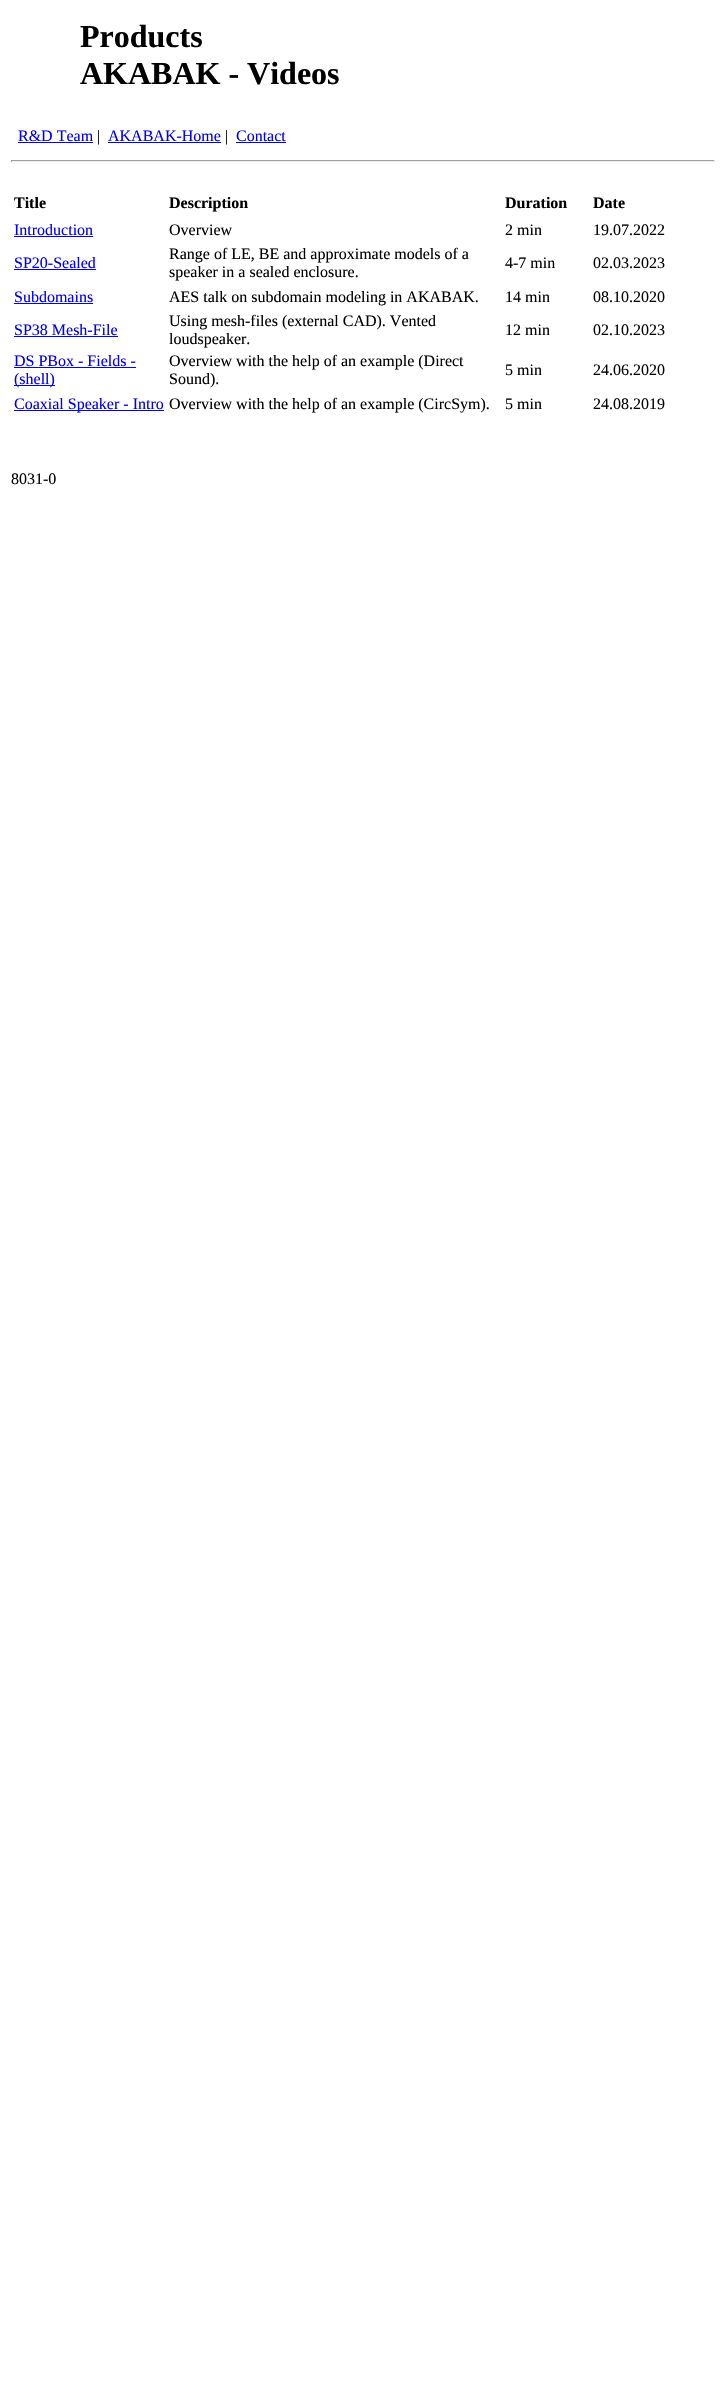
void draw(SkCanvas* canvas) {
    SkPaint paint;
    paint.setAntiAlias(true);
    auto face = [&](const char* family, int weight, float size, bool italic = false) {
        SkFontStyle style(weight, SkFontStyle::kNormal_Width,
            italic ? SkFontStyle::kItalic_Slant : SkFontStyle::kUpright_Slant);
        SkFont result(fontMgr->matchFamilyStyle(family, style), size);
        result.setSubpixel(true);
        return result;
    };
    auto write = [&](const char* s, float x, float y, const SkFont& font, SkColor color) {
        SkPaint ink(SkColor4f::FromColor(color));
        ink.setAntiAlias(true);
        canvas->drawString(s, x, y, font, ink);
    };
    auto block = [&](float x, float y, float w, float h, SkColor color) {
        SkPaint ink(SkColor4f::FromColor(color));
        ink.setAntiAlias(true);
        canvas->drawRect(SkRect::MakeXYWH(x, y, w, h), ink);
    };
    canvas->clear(SK_ColorWHITE);
    auto kFont1 = face("Liberation Serif", 700, 32);
    write("Products", 80, 47, kFont1, SK_ColorBLACK);
    write("AKABAK - Videos", 80, 84, kFont1, SK_ColorBLACK);
    auto kFont2 = face("Liberation Serif", 400, 16);
    write("R&D Team", 18, 141, kFont2, SkColorSetRGB(0, 0, 238));
    block(18, 142, 75, 1, SkColorSetRGB(0, 0, 238));
    write("|", 97, 141, kFont2, SK_ColorBLACK);
    write("AKABAK-Home", 108, 141, kFont2, SkColorSetRGB(0, 0, 238));
    block(108, 142, 113, 1, SkColorSetRGB(0, 0, 238));
    write("|", 225, 141, kFont2, SK_ColorBLACK);
    write("Contact", 236, 141, kFont2, SkColorSetRGB(0, 0, 238));
    block(236, 142, 50, 1, SkColorSetRGB(0, 0, 238));
    block(11, 160, 704, 1, SkColorSetRGB(159, 159, 159));
    block(714, 160, 1, 2, SkColorSetRGB(238, 238, 238));
    block(11, 161, 704, 1, SkColorSetRGB(238, 238, 238));
    block(11, 160, 1, 2, SkColorSetRGB(159, 159, 159));
    auto kFont3 = face("Liberation Serif", 700, 16);
    write("Title", 14, 208, kFont3, SK_ColorBLACK);
    write("Description", 169, 208, kFont3, SK_ColorBLACK);
    write("Duration", 505, 208, kFont3, SK_ColorBLACK);
    write("Date", 593, 208, kFont3, SK_ColorBLACK);
    write("Introduction", 14, 235, kFont2, SkColorSetRGB(0, 0, 238));
    block(14, 236, 79, 1, SkColorSetRGB(0, 0, 238));
    write("Overview", 169, 235, kFont2, SK_ColorBLACK);
    write("2 min", 505, 235, kFont2, SK_ColorBLACK);
    write("19.07.2022", 593, 235, kFont2, SK_ColorBLACK);
    write("SP20-Sealed", 14, 268, kFont2, SkColorSetRGB(0, 0, 238));
    block(14, 269, 82, 1, SkColorSetRGB(0, 0, 238));
    write("Range of LE, BE and approximate models of a", 169, 259, kFont2, SK_ColorBLACK);
    write("speaker in a sealed enclosure.", 169, 277, kFont2, SK_ColorBLACK);
    write("4-7 min", 505, 268, kFont2, SK_ColorBLACK);
    write("02.03.2023", 593, 268, kFont2, SK_ColorBLACK);
    write("Subdomains", 14, 302, kFont2, SkColorSetRGB(0, 0, 238));
    block(14, 303, 79, 1, SkColorSetRGB(0, 0, 238));
    write("AES talk on subdomain modeling in AKABAK.", 169, 302, kFont2, SK_ColorBLACK);
    write("14 min", 505, 302, kFont2, SK_ColorBLACK);
    write("08.10.2020", 593, 302, kFont2, SK_ColorBLACK);
    write("SP38 Mesh-File", 14, 335, kFont2, SkColorSetRGB(0, 0, 238));
    block(14, 336, 104, 1, SkColorSetRGB(0, 0, 238));
    write("Using mesh-files (external CAD). Vented", 169, 326, kFont2, SK_ColorBLACK);
    write("loudspeaker.", 169, 344, kFont2, SK_ColorBLACK);
    write("12 min", 505, 335, kFont2, SK_ColorBLACK);
    write("02.10.2023", 593, 335, kFont2, SK_ColorBLACK);
    write("DS PBox - Fields -", 14, 366, kFont2, SkColorSetRGB(0, 0, 238));
    block(14, 367, 122, 1, SkColorSetRGB(0, 0, 238));
    block(14, 385, 41, 1, SkColorSetRGB(0, 0, 238));
    write("(shell)", 14, 384, kFont2, SkColorSetRGB(0, 0, 238));
    write("Overview with the help of an example (Direct", 169, 366, kFont2, SK_ColorBLACK);
    write("Sound).", 169, 384, kFont2, SK_ColorBLACK);
    write("5 min", 505, 375, kFont2, SK_ColorBLACK);
    write("24.06.2020", 593, 375, kFont2, SK_ColorBLACK);
    block(14, 410, 150, 1, SkColorSetRGB(0, 0, 238));
    write("Coaxial Speaker - Intro", 14, 409, kFont2, SkColorSetRGB(0, 0, 238));
    write("Overview with the help of an example (CircSym).", 169, 409, kFont2, SK_ColorBLACK);
    write("5 min", 505, 409, kFont2, SK_ColorBLACK);
    write("24.08.2019", 593, 409, kFont2, SK_ColorBLACK);
    write("8031-0", 11, 484, kFont2, SK_ColorBLACK);
}
